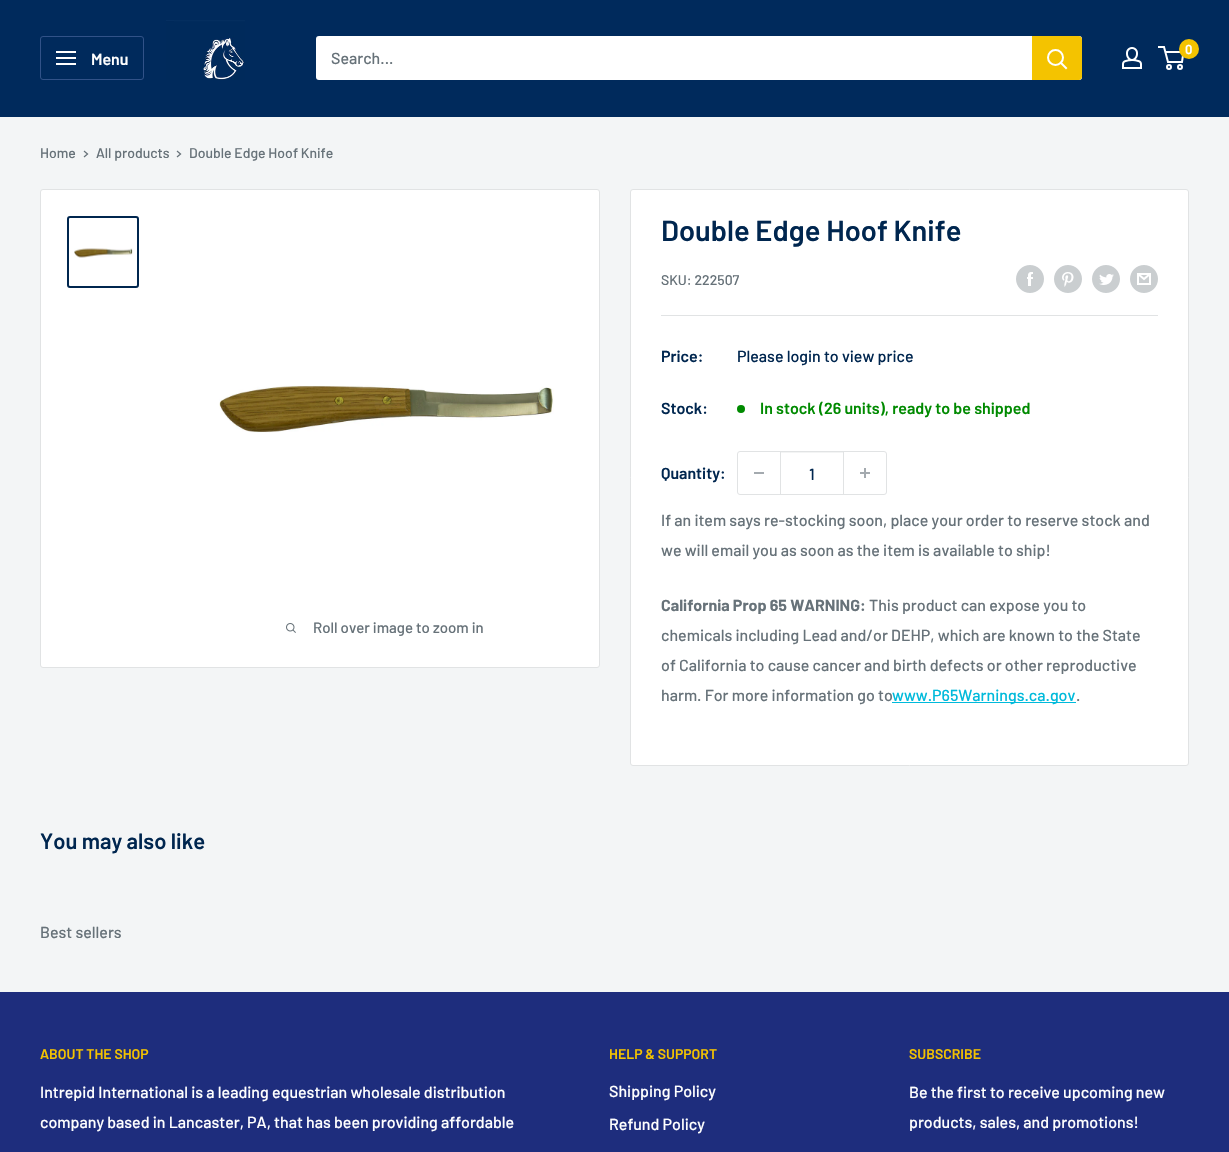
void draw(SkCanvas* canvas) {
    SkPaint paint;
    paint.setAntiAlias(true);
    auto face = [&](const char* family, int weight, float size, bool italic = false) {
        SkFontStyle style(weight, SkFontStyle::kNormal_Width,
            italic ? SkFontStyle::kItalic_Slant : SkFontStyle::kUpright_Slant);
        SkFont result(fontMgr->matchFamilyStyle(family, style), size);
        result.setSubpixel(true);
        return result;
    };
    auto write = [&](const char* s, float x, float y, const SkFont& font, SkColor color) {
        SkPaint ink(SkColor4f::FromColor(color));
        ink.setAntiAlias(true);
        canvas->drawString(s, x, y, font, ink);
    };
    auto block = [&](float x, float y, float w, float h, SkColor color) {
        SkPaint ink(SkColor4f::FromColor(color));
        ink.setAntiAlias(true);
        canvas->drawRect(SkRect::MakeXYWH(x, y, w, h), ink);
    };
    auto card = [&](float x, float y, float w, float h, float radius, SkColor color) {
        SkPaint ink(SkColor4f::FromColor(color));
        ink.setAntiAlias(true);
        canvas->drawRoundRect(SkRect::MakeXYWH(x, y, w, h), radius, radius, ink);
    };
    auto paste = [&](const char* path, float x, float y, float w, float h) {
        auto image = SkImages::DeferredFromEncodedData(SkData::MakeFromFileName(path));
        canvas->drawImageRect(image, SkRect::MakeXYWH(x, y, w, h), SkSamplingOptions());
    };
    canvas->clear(SkColorSetRGB(243, 245, 246));
    block(0, 0, 1229, 117, SkColorSetRGB(0, 42, 92));
    paste("pic1.png", 166, 20, 79, 60);
    paste("pic2.png", 1122, 47, 20, 22);
    paint.setStyle(SkPaint::kStroke_Style);
    paint.setStrokeWidth(2);
    paint.setColor(SK_ColorWHITE);
    canvas->drawCircle(1169, 67, 2, paint);
    canvas->drawCircle(1180, 67, 2, paint);
    canvas->drawPath(SkPathBuilder().moveTo(1165.5f, 52).lineTo(1183.5f, 52).lineTo(1182, 62).lineTo(1168, 62).lineTo(1164, 47).lineTo(1158, 47).detach(), paint);
    paint.setStyle(SkPaint::kFill_Style);
    paint.setColor(SkColorSetRGB(244, 195, 0));
    canvas->drawCircle(1189, 49, 10, paint);
    auto kFont1 = face("Barlow", 600, 13);
    write("0", 1185, 54, kFont1, SK_ColorWHITE);
    paint.setStyle(SkPaint::kStroke_Style);
    paint.setStrokeWidth(1);
    paint.setColor(SkColorSetRGB(49, 82, 136));
    canvas->drawRoundRect(SkRect::MakeXYWH(40.5f, 36.5f, 103, 43), 2.5f, 2.5f, paint);
    paste("pic3.png", 56, 51, 20, 14);
    auto kFont2 = face("Barlow", 600, 16);
    write("Menu", 91, 65, kFont2, SK_ColorWHITE);
    card(316, 36, 766, 44, 3, SK_ColorWHITE);
    auto kFont3 = face("Barlow", 500, 16);
    write("Search...", 331, 64, kFont3, SkColorSetRGB(103, 114, 121));
    paint.setStyle(SkPaint::kFill_Style);
    paint.setColor(SkColorSetRGB(244, 195, 0));
    canvas->drawPath(SkPathBuilder().moveTo(1032, 36).lineTo(1079, 36).cubicTo(1080.5f, 36, 1082, 37.5f, 1082, 39).lineTo(1082, 77).cubicTo(1082, 78.5f, 1080.5f, 80, 1079, 80).lineTo(1032, 80).close().detach(), paint);
    paint.setStyle(SkPaint::kStroke_Style);
    paint.setStrokeWidth(2);
    paint.setStrokeCap(SkPaint::kSquare_Cap);
    paint.setColor(SK_ColorWHITE);
    canvas->drawPath(SkPathBuilder().moveTo(1066, 68).lineTo(1061, 63).detach(), paint);
    paint.setStrokeCap(SkPaint::kButt_Cap);
    canvas->drawCircle(1055.5f, 57.5f, 7.5f, paint);
    auto kFont4 = face("Barlow", 500, 14);
    write("Home", 40, 158, kFont4, SkColorSetRGB(103, 114, 121));
    paint.setStrokeWidth(1.3f);
    paint.setStrokeCap(SkPaint::kSquare_Cap);
    paint.setColor(SkColorSetRGB(103, 114, 121));
    canvas->drawPath(SkPathBuilder().moveTo(84.5f, 151.5f).lineTo(87.5f, 154).lineTo(84.5f, 156.5f).detach(), paint);
    write("All products", 96, 158, kFont4, SkColorSetRGB(103, 114, 121));
    canvas->drawPath(SkPathBuilder().moveTo(177.5f, 151.5f).lineTo(180.5f, 154).lineTo(177.5f, 156.5f).detach(), paint);
    write("Double Edge Hoof Knife", 189, 158, kFont4, SkColorSetRGB(103, 114, 121));
    paint.setStyle(SkPaint::kFill_Style);
    paint.setColor(SK_ColorWHITE);
    canvas->drawRoundRect(SkRect::MakeXYWH(40.5f, 189.5f, 559, 478), 2.5f, 2.5f, paint);
    paint.setStyle(SkPaint::kStroke_Style);
    paint.setStrokeWidth(1);
    paint.setStrokeCap(SkPaint::kButt_Cap);
    paint.setColor(SkColorSetRGB(225, 227, 228));
    canvas->drawRoundRect(SkRect::MakeXYWH(40.5f, 189.5f, 559, 478), 2.5f, 2.5f, paint);
    paint.setStrokeWidth(2);
    paint.setColor(SkColorSetRGB(0, 38, 79));
    canvas->drawRoundRect(SkRect::MakeXYWH(68, 217, 70, 70), 2, 2, paint);
    paste("pic4.png", 74, 248, 60, 10);
    paste("pic5.png", 219, 385, 335, 48);
    paste("pic6.png", 286, 623, 10, 10);
    auto kFont5 = face("Barlow", 500, 15);
    write("Roll over image to zoom in", 313, 633, kFont5, SkColorSetRGB(103, 114, 121));
    paint.setStyle(SkPaint::kFill_Style);
    paint.setColor(SK_ColorWHITE);
    canvas->drawRoundRect(SkRect::MakeXYWH(630.5f, 189.5f, 558, 576), 2.5f, 2.5f, paint);
    paint.setStyle(SkPaint::kStroke_Style);
    paint.setStrokeWidth(1);
    paint.setColor(SkColorSetRGB(225, 227, 228));
    canvas->drawRoundRect(SkRect::MakeXYWH(630.5f, 189.5f, 558, 576), 2.5f, 2.5f, paint);
    auto kFont6 = face("Barlow", 600, 29);
    write("Double Edge Hoof Knife", 661, 241, kFont6, SkColorSetRGB(0, 38, 79));
    write("SKU: 222507", 661, 285, kFont4, SkColorSetRGB(103, 114, 121));
    paste("pic7.png", 1016, 265, 28, 28);
    paste("pic8.png", 1054, 265, 28, 28);
    paste("pic9.png", 1092, 265, 28, 28);
    paste("pic10.png", 1130, 265, 28, 28);
    block(661, 315, 497, 1, SkColorSetRGB(225, 227, 228));
    write("Price:", 661, 362, kFont2, SkColorSetRGB(0, 38, 79));
    write("Please login to view price", 737, 362, kFont3, SkColorSetRGB(0, 38, 79));
    write("Stock:", 661, 414, kFont2, SkColorSetRGB(0, 38, 79));
    paint.setStyle(SkPaint::kFill_Style);
    paint.setColor(SkColorSetRGB(0, 138, 0));
    canvas->drawCircle(741, 409, 4, paint);
    write("In stock (26 units), ready to be shipped", 760, 414, kFont2, SkColorSetRGB(0, 138, 0));
    write("Quantity:", 661, 479, kFont2, SkColorSetRGB(0, 38, 79));
    paint.setStyle(SkPaint::kStroke_Style);
    paint.setColor(SkColorSetRGB(225, 227, 228));
    canvas->drawRoundRect(SkRect::MakeXYWH(737.5f, 451.5f, 149, 43), 2.5f, 2.5f, paint);
    block(754, 472, 10, 2, SkColorSetRGB(164, 170, 175));
    block(781, 452, 62, 1, SkColorSetRGB(243, 244, 244));
    block(843, 452, 1, 42, SkColorSetRGB(225, 227, 228));
    block(780, 452, 1, 42, SkColorSetRGB(225, 227, 228));
    write("1", 809, 480, kFont3, SkColorSetRGB(0, 38, 79));
    paste("pic11.png", 860, 468, 10, 10);
    write("If an item says re-stocking soon, place your order to reserve stock and", 661, 526, kFont3, SkColorSetRGB(103, 114, 121));
    write("we will email you as soon as the item is available to ship!", 661, 556, kFont3, SkColorSetRGB(103, 114, 121));
    auto kFont7 = face("Barlow", 700, 16);
    write("California Prop 65 WARNING:", 661, 611, kFont7, SkColorSetRGB(103, 114, 121));
    write("This product can expose you to", 869, 611, kFont3, SkColorSetRGB(103, 114, 121));
    write("chemicals including Lead and/or DEHP, which are known to the State", 661, 641, kFont3, SkColorSetRGB(103, 114, 121));
    write("of California to cause cancer and birth defects or other reproductive", 661, 671, kFont3, SkColorSetRGB(103, 114, 121));
    write("harm. For more information go to", 661, 701, kFont3, SkColorSetRGB(103, 114, 121));
    block(892, 702, 184, 1, SkColorSetRGB(0, 186, 219));
    write("www.P65Warnings.ca.gov", 892, 701, kFont3, SkColorSetRGB(0, 186, 219));
    write(".", 1076, 701, kFont3, SkColorSetRGB(103, 114, 121));
    auto kFont8 = face("Barlow", 600, 22);
    write("You may also like", 40, 849, kFont8, SkColorSetRGB(0, 38, 79));
    write("Best sellers", 40, 938, kFont3, SkColorSetRGB(103, 114, 121));
    block(0, 992, 1229, 160, SkColorSetRGB(30, 45, 125));
    auto kFont9 = face("Barlow", 600, 14);
    write("ABOUT THE SHOP", 40, 1059, kFont9, SkColorSetRGB(244, 195, 0));
    write("Intrepid International is a leading equestrian wholesale distribution", 40, 1098, kFont3, SK_ColorWHITE);
    write("company based in Lancaster, PA, that has been providing affordable", 40, 1128, kFont3, SK_ColorWHITE);
    write("HELP & SUPPORT", 609, 1059, kFont9, SkColorSetRGB(244, 195, 0));
    write("Shipping Policy", 609, 1097, kFont3, SK_ColorWHITE);
    write("Refund Policy", 609, 1130, kFont3, SK_ColorWHITE);
    write("SUBSCRIBE", 909, 1059, kFont9, SkColorSetRGB(244, 195, 0));
    write("Be the first to receive upcoming new", 909, 1098, kFont3, SK_ColorWHITE);
    write("products, sales, and promotions!", 909, 1128, kFont3, SK_ColorWHITE);
}
